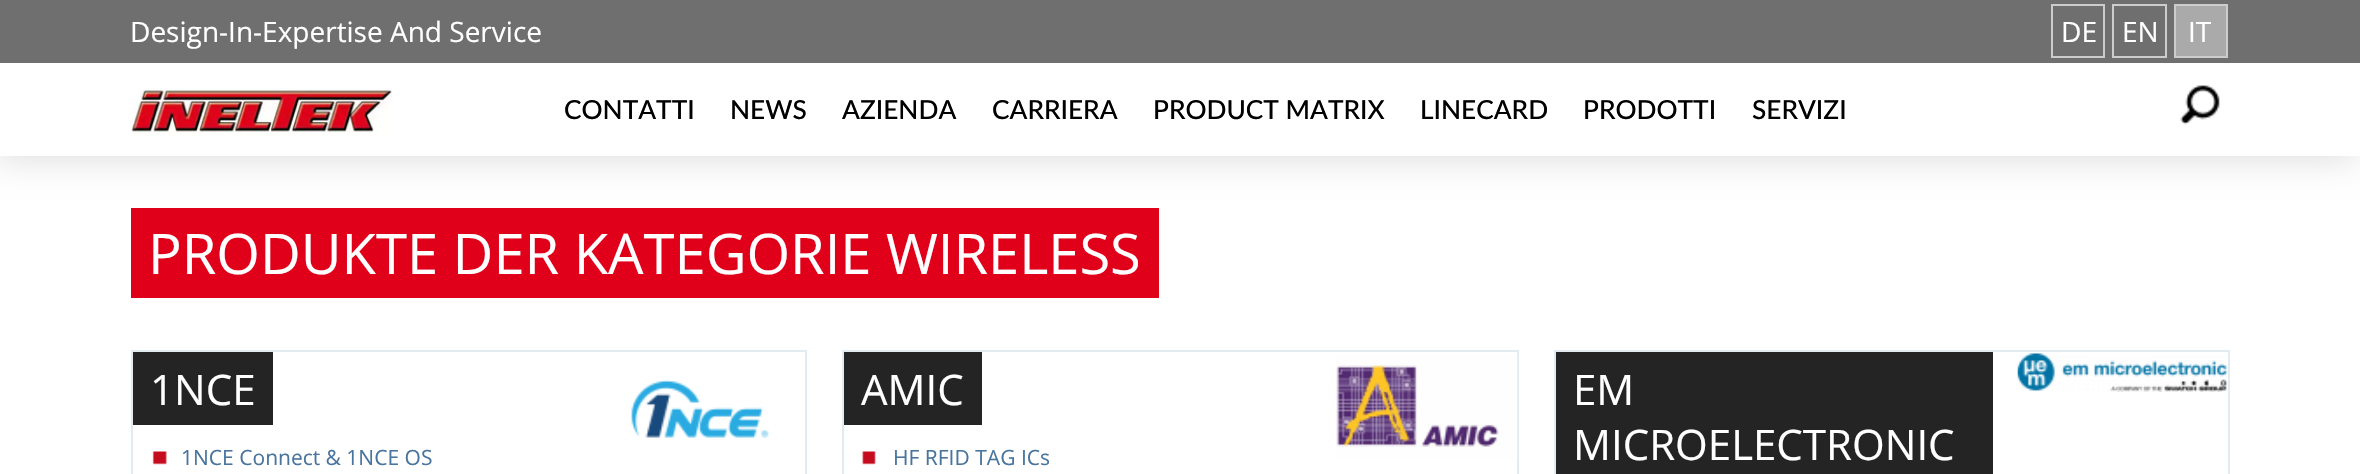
void draw(SkCanvas* canvas) {
    SkPaint paint;
    paint.setAntiAlias(true);
    auto face = [&](const char* family, int weight, float size, bool italic = false) {
        SkFontStyle style(weight, SkFontStyle::kNormal_Width,
            italic ? SkFontStyle::kItalic_Slant : SkFontStyle::kUpright_Slant);
        SkFont result(fontMgr->matchFamilyStyle(family, style), size);
        result.setSubpixel(true);
        return result;
    };
    auto write = [&](const char* s, float x, float y, const SkFont& font, SkColor color) {
        SkPaint ink(SkColor4f::FromColor(color));
        ink.setAntiAlias(true);
        canvas->drawString(s, x, y, font, ink);
    };
    auto block = [&](float x, float y, float w, float h, SkColor color) {
        SkPaint ink(SkColor4f::FromColor(color));
        ink.setAntiAlias(true);
        canvas->drawRect(SkRect::MakeXYWH(x, y, w, h), ink);
    };
    auto paste = [&](const char* path, float x, float y, float w, float h) {
        auto image = SkImages::DeferredFromEncodedData(SkData::MakeFromFileName(path));
        canvas->drawImageRect(image, SkRect::MakeXYWH(x, y, w, h), SkSamplingOptions());
    };
    canvas->clear(SK_ColorWHITE);
    canvas->save();
    canvas->clipPath(SkPathBuilder(SkPathFillType::kEvenOdd).moveTo(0, 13).lineTo(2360, 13).lineTo(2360, 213).lineTo(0, 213).close().moveTo(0, 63).lineTo(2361, 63).lineTo(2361, 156).lineTo(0, 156).close().detach(), true);
    paint.setColor(SkColorSetRGB(221, 221, 221));
    paint.setMaskFilter(SkMaskFilter::MakeBlur(kNormal_SkBlurStyle, 17.5f));
    canvas->drawRect(SkRect::MakeXYWH(-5, 67, 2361, 92), paint);
    paint.setMaskFilter(nullptr);
    canvas->restore();
    block(0, 0, 2360, 63, SkColorSetRGB(111, 111, 111));
    auto kFont1 = face("Open Sans", 400, 28);
    write("Design-In-Expertise And Service", 130, 42, kFont1, SK_ColorWHITE);
    paint.setStyle(SkPaint::kStroke_Style);
    paint.setStrokeWidth(2);
    paint.setColor(SkColorSetRGB(204, 204, 204));
    canvas->drawRect(SkRect::MakeXYWH(2052, 5, 52, 52), paint);
    write("DE", 2061, 42, kFont1, SK_ColorWHITE);
    canvas->drawRect(SkRect::MakeXYWH(2113, 5, 53, 52), paint);
    write("EN", 2122, 42, kFont1, SK_ColorWHITE);
    paint.setStyle(SkPaint::kFill_Style);
    paint.setColor(SkColorSetRGB(170, 170, 170));
    canvas->drawRect(SkRect::MakeXYWH(2175, 5, 52, 52), paint);
    paint.setStyle(SkPaint::kStroke_Style);
    paint.setColor(SkColorSetRGB(204, 204, 204));
    canvas->drawRect(SkRect::MakeXYWH(2175, 5, 52, 52), paint);
    write("IT", 2188, 42, kFont1, SK_ColorWHITE);
    paste("pic1.png", 131, 88, 261, 48);
    block(551, 155, 1680, 1, SK_ColorWHITE);
    auto kFont2 = face("Lato", 500, 26.25f);
    write("CONTATTI", 564, 119, kFont2, SK_ColorBLACK);
    write("NEWS", 730, 119, kFont2, SK_ColorBLACK);
    write("AZIENDA", 842, 119, kFont2, SK_ColorBLACK);
    write("CARRIERA", 992, 119, kFont2, SK_ColorBLACK);
    write("PRODUCT MATRIX", 1153, 119, kFont2, SK_ColorBLACK);
    write("LINECARD", 1420, 119, kFont2, SK_ColorBLACK);
    write("PRODOTTI", 1583, 119, kFont2, SK_ColorBLACK);
    write("SERVIZI", 1752, 119, kFont2, SK_ColorBLACK);
    paste("pic2.png", 2180, 85, 40, 40);
    block(131, 208, 1028, 90, SkColorSetRGB(225, 0, 26));
    auto kFont3 = face("Open Sans", 400, 56);
    write("PRODUKTE DER KATEGORIE WIRELESS", 148, 274, kFont3, SK_ColorWHITE);
    paint.setColor(SkColorSetRGB(226, 235, 240));
    canvas->drawRect(SkRect::MakeXYWH(132, 351, 674, 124), paint);
    block(133, 352, 140, 73, SkColorSetRGB(36, 36, 36));
    auto kFont4 = face("Open Sans", 400, 42);
    write("1NCE", 150, 405, kFont4, SK_ColorWHITE);
    paste("pic3.png", 630, 379, 139, 59);
    paste("pic4.png", 152, 451, 15, 14);
    auto kFont5 = face("Open Sans", 400, 21);
    write("1NCE Connect & 1NCE OS", 181, 465, kFont5, SkColorSetRGB(73, 116, 158));
    canvas->drawRect(SkRect::MakeXYWH(843, 351, 675, 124), paint);
    block(844, 352, 138, 73, SkColorSetRGB(36, 36, 36));
    write("AMIC", 861, 405, kFont4, SK_ColorWHITE);
    paste("pic5.png", 1336, 354, 182, 104);
    paste("pic6.png", 862, 451, 14, 14);
    write("HF RFID TAG ICs", 893, 465, kFont5, SkColorSetRGB(73, 116, 158));
    canvas->drawRect(SkRect::MakeXYWH(1555, 351, 674, 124), paint);
    block(1556, 352, 437, 122, SkColorSetRGB(36, 36, 36));
    write("EM", 1573, 405, kFont4, SK_ColorWHITE);
    write("MICROELECTRONIC", 1573, 460, kFont4, SK_ColorWHITE);
    paste("pic7.png", 2017, 353, 211, 39);
}
